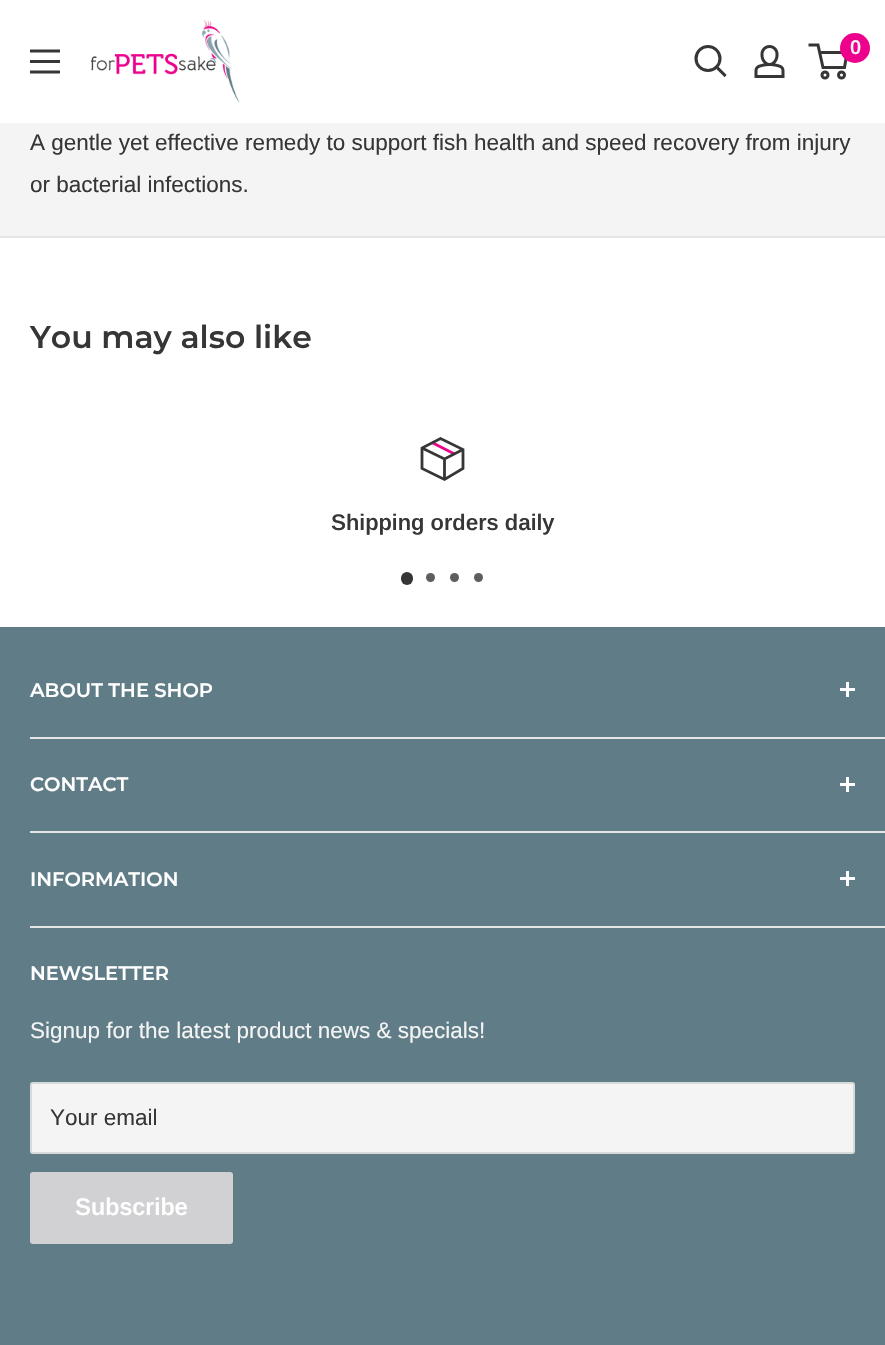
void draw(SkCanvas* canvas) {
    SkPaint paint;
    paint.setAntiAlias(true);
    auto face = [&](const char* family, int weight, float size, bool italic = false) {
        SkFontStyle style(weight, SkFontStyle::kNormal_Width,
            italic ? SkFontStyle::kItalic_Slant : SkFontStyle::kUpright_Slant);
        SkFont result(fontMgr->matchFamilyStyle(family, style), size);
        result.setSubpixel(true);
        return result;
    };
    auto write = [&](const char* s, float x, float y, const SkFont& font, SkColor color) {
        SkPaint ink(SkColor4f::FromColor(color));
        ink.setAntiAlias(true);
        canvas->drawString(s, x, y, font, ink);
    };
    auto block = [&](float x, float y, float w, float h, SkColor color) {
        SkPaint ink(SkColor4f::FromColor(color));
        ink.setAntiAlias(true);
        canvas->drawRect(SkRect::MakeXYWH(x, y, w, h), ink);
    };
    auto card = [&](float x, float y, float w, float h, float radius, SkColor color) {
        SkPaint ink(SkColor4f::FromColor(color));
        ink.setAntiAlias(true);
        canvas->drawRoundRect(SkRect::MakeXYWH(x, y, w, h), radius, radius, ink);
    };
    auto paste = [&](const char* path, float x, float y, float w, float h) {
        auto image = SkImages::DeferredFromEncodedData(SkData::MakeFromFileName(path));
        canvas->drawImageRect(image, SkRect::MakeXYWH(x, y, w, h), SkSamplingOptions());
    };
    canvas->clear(SK_ColorWHITE);
    paste("pic1.png", 90, 20, 150, 83);
    paint.setStyle(SkPaint::kStroke_Style);
    paint.setStrokeWidth(3.1f);
    paint.setStrokeCap(SkPaint::kSquare_Cap);
    paint.setColor(SkColorSetRGB(54, 54, 54));
    canvas->drawPath(SkPathBuilder().moveTo(724.5f, 75).lineTo(716.5f, 67).detach(), paint);
    paint.setStrokeCap(SkPaint::kButt_Cap);
    canvas->drawCircle(708, 58.5f, 12, paint);
    paste("pic2.png", 754, 45, 31, 33);
    paint.setStrokeWidth(3);
    canvas->drawCircle(825, 75, 3, paint);
    canvas->drawCircle(841.5f, 75, 3, paint);
    canvas->drawPath(SkPathBuilder().moveTo(819.5f, 52.5f).lineTo(847, 52.5f).lineTo(844.5f, 67.5f).lineTo(823, 67.5f).lineTo(818, 45).lineTo(808.5f, 45).detach(), paint);
    paint.setStyle(SkPaint::kFill_Style);
    paint.setColor(SkColorSetRGB(236, 0, 140));
    canvas->drawCircle(855, 48, 15, paint);
    auto kFont1 = face("Arimo", 600, 20);
    write("0", 850, 54, kFont1, SkColorSetRGB(244, 244, 244));
    paste("pic3.png", 30, 49, 30, 25);
    block(0, 123, 885, 113, SkColorSetRGB(244, 244, 244));
    block(0, 236, 885, 2, SkColorSetRGB(228, 230, 230));
    auto kFont2 = face("Arimo", 400, 22.5f);
    write("A gentle yet effective remedy to support fish health and speed recovery from injury", 30, 150, kFont2, SkColorSetRGB(54, 54, 54));
    write("or bacterial infections.", 30, 192, kFont2, SkColorSetRGB(54, 54, 54));
    auto kFont3 = face("Montserrat", 600, 31.5f);
    write("You may also like", 30, 348, kFont3, SkColorSetRGB(54, 54, 54));
    paint.setStyle(SkPaint::kStroke_Style);
    paint.setStrokeWidth(2.8f);
    canvas->drawPath(SkPathBuilder().moveTo(432, 442.5f).lineTo(454.5f, 454).detach(), paint);
    paint.setColor(SkColorSetRGB(54, 54, 54));
    canvas->drawPath(SkPathBuilder().moveTo(463, 449.5f).lineTo(444.5f, 459).lineTo(422, 448).moveTo(444.5f, 459).lineTo(444.5f, 479.5f).detach(), paint);
    paint.setStrokeCap(SkPaint::kSquare_Cap);
    canvas->drawPath(SkPathBuilder().moveTo(463, 449.5f).lineTo(463, 468.5f).lineTo(444.5f, 479.5f).lineTo(422, 468.5f).lineTo(422, 448).lineTo(440.5f, 438.5f).close().detach(), paint);
    auto kFont4 = face("Arimo", 600, 22.5f);
    write("Shipping orders daily", 331, 530, kFont4, SkColorSetRGB(54, 54, 54));
    card(401, 572, 12, 13, 6, SkColorSetRGB(54, 54, 54));
    paint.setStyle(SkPaint::kFill_Style);
    paint.setColor(SkColorSetRGB(94, 94, 94));
    canvas->drawCircle(430.5f, 577.5f, 4.5f, paint);
    canvas->drawCircle(454.5f, 577.5f, 4.5f, paint);
    canvas->drawCircle(478.5f, 577.5f, 4.5f, paint);
    block(0, 627, 885, 718, SkColorSetRGB(96, 125, 135));
    block(30, 737, 855, 2, SkColorSetRGB(228, 230, 230));
    auto kFont5 = face("Montserrat", 600, 19.5f);
    write("ABOUT THE SHOP", 30, 697, kFont5, SK_ColorWHITE);
    block(846, 682, 3, 15, SK_ColorWHITE);
    block(840, 688, 15, 3, SK_ColorWHITE);
    block(30, 831, 855, 2, SkColorSetRGB(228, 230, 230));
    write("CONTACT", 30, 791, kFont5, SK_ColorWHITE);
    block(846, 777, 3, 15, SK_ColorWHITE);
    block(840, 783, 15, 3, SK_ColorWHITE);
    block(30, 926, 855, 2, SkColorSetRGB(228, 230, 230));
    write("INFORMATION", 30, 886, kFont5, SK_ColorWHITE);
    block(846, 871, 3, 15, SK_ColorWHITE);
    block(840, 877, 15, 3, SK_ColorWHITE);
    write("NEWSLETTER", 30, 980, kFont5, SK_ColorWHITE);
    write("Signup for the latest product news & specials!", 30, 1038, kFont2, SkColorSetRGB(244, 244, 244));
    paint.setColor(SkColorSetRGB(244, 244, 244));
    canvas->drawRoundRect(SkRect::MakeXYWH(31, 1083, 823, 70), 2, 2, paint);
    paint.setStyle(SkPaint::kStroke_Style);
    paint.setStrokeWidth(2);
    paint.setStrokeCap(SkPaint::kButt_Cap);
    paint.setColor(SkColorSetRGB(215, 218, 218));
    canvas->drawRoundRect(SkRect::MakeXYWH(31, 1083, 823, 70), 2, 2, paint);
    write("Your email", 50, 1125, kFont2, SkColorSetRGB(54, 54, 54));
    card(30, 1172, 203, 72, 3, SkColorSetRGB(209, 209, 212));
    auto kFont6 = face("Arimo", 600, 24);
    write("Subscribe", 75, 1215, kFont6, SK_ColorWHITE);
}
